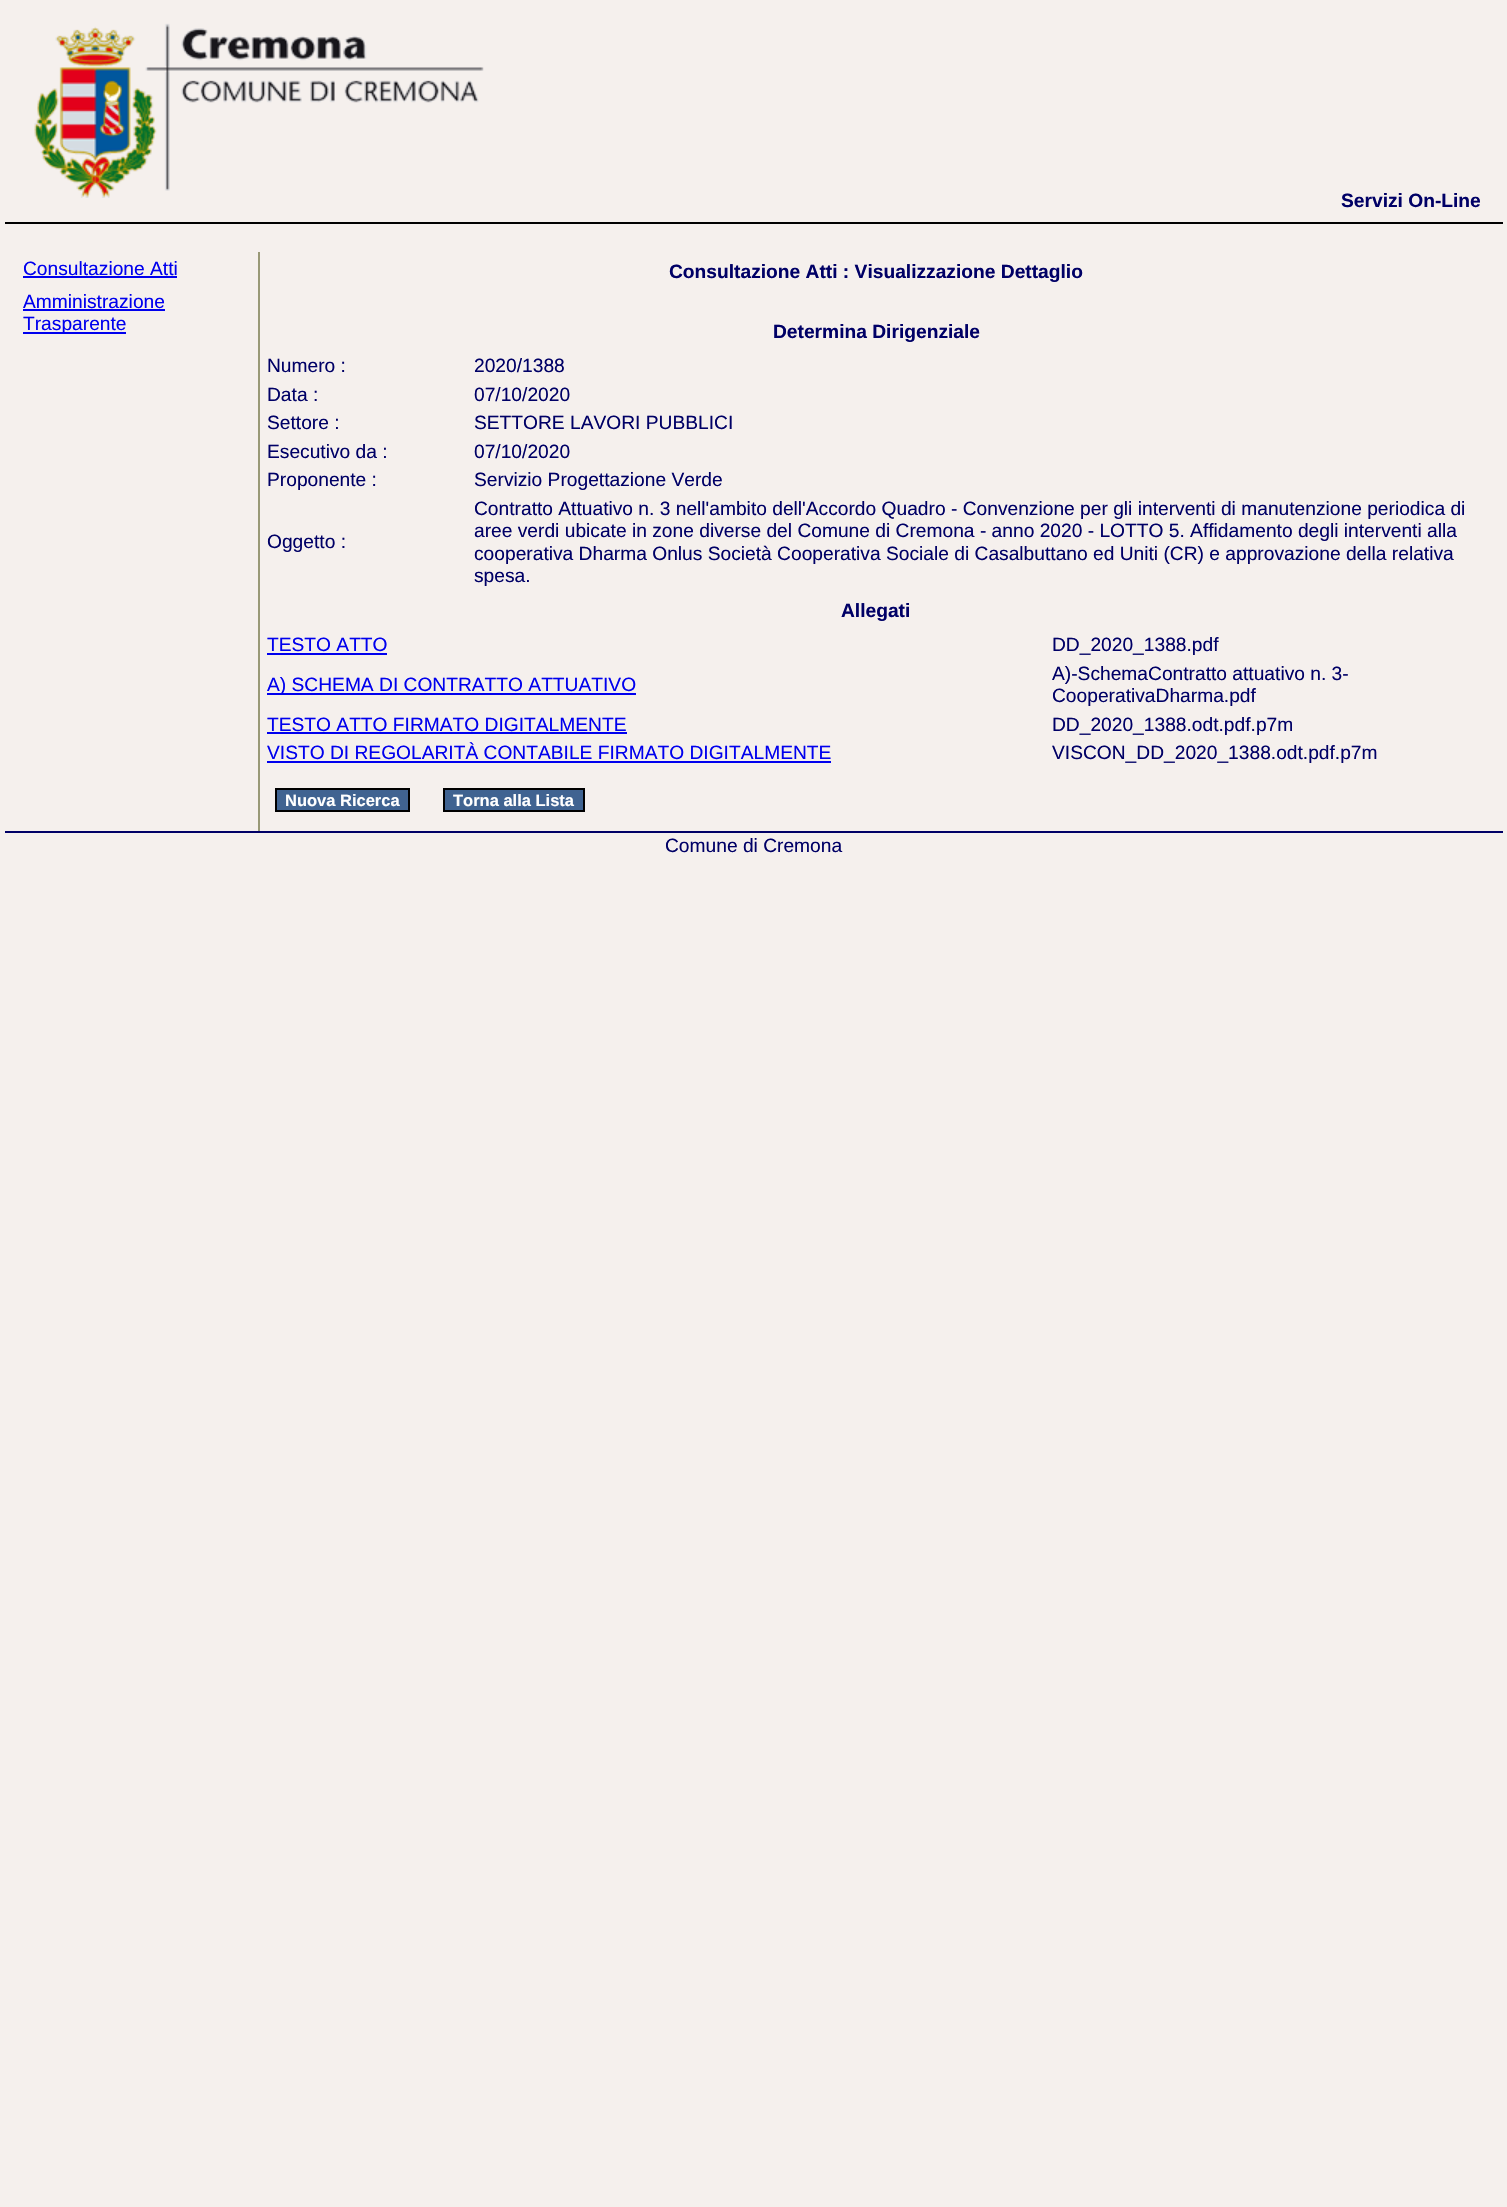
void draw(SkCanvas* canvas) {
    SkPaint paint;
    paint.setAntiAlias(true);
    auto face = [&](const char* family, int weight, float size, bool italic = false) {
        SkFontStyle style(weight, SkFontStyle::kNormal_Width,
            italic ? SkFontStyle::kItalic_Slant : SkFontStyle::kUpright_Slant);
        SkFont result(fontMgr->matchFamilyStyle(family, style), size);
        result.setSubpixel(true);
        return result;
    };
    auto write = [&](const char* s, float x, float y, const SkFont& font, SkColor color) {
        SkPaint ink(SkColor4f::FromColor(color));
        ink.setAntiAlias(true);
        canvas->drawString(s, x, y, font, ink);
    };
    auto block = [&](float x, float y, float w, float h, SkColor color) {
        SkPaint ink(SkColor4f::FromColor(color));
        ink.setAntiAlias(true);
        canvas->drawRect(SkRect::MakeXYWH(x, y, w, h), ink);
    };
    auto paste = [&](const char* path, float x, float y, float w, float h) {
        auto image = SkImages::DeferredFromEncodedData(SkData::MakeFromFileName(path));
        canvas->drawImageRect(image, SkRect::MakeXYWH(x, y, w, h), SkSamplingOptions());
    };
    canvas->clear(SkColorSetRGB(245, 240, 237));
    paste("pic1.png", 34, 23, 450, 175);
    block(5, 222, 1498, 2, SK_ColorBLACK);
    auto kFont1 = face("Liberation Sans", 700, 19.2f);
    write("Servizi On-Line", 1341, 207, kFont1, SkColorSetRGB(0, 0, 102));
    auto kFont2 = face("Liberation Sans", 400, 19.2f);
    write("Consultazione Atti", 23, 275, kFont2, SkColorSetRGB(0, 0, 238));
    block(23, 276, 154, 2, SkColorSetRGB(0, 0, 238));
    write("Amministrazione", 23, 308, kFont2, SkColorSetRGB(0, 0, 238));
    block(23, 309, 142, 2, SkColorSetRGB(0, 0, 238));
    block(23, 332, 103, 2, SkColorSetRGB(0, 0, 238));
    write("Trasparente", 23, 330, kFont2, SkColorSetRGB(0, 0, 238));
    block(258, 252, 2, 579, SkColorSetRGB(153, 153, 119));
    write("Consultazione Atti : Visualizzazione Dettaglio", 669, 278, kFont1, SkColorSetRGB(0, 0, 102));
    write("Determina Dirigenziale", 773, 338, kFont1, SkColorSetRGB(0, 0, 102));
    write("Numero :", 267, 372, kFont2, SkColorSetRGB(0, 0, 102));
    write("2020/1388", 474, 372, kFont2, SkColorSetRGB(0, 0, 102));
    write("Data :", 267, 401, kFont2, SkColorSetRGB(0, 0, 102));
    write("07/10/2020", 474, 401, kFont2, SkColorSetRGB(0, 0, 102));
    write("Settore :", 267, 429, kFont2, SkColorSetRGB(0, 0, 102));
    write("SETTORE LAVORI PUBBLICI", 474, 429, kFont2, SkColorSetRGB(0, 0, 102));
    write("Esecutivo da :", 267, 458, kFont2, SkColorSetRGB(0, 0, 102));
    write("07/10/2020", 474, 458, kFont2, SkColorSetRGB(0, 0, 102));
    write("Proponente :", 267, 486, kFont2, SkColorSetRGB(0, 0, 102));
    write("Servizio Progettazione Verde", 474, 486, kFont2, SkColorSetRGB(0, 0, 102));
    write("Oggetto :", 267, 548, kFont2, SkColorSetRGB(0, 0, 102));
    write("Contratto Attuativo n. 3 nell'ambito dell'Accordo Quadro - Convenzione per gli interventi di manutenzione periodica di", 474, 515, kFont2, SkColorSetRGB(0, 0, 102));
    write("aree verdi ubicate in zone diverse del Comune di Cremona - anno 2020 - LOTTO 5. Affidamento degli interventi alla", 474, 537, kFont2, SkColorSetRGB(0, 0, 102));
    write("cooperativa Dharma Onlus Società Cooperativa Sociale di Casalbuttano ed Uniti (CR) e approvazione della relativa", 474, 560, kFont2, SkColorSetRGB(0, 0, 102));
    write("spesa.", 474, 582, kFont2, SkColorSetRGB(0, 0, 102));
    write("Allegati", 841, 617, kFont1, SkColorSetRGB(0, 0, 102));
    write("TESTO ATTO", 267, 651, kFont2, SkColorSetRGB(0, 0, 238));
    block(267, 653, 120, 2, SkColorSetRGB(0, 0, 238));
    write("DD_2020_1388.pdf", 1052, 651, kFont2, SkColorSetRGB(0, 0, 102));
    block(267, 693, 369, 2, SkColorSetRGB(0, 0, 238));
    write("A) SCHEMA DI CONTRATTO ATTUATIVO", 267, 691, kFont2, SkColorSetRGB(0, 0, 238));
    write("A)-SchemaContratto attuativo n. 3-", 1052, 680, kFont2, SkColorSetRGB(0, 0, 102));
    write("CooperativaDharma.pdf", 1052, 702, kFont2, SkColorSetRGB(0, 0, 102));
    write("TESTO ATTO FIRMATO DIGITALMENTE", 267, 731, kFont2, SkColorSetRGB(0, 0, 238));
    block(267, 732, 360, 2, SkColorSetRGB(0, 0, 238));
    write("DD_2020_1388.odt.pdf.p7m", 1052, 731, kFont2, SkColorSetRGB(0, 0, 102));
    write("VISTO DI REGOLARITÀ CONTABILE FIRMATO DIGITALMENTE", 267, 759, kFont2, SkColorSetRGB(0, 0, 238));
    block(267, 761, 564, 2, SkColorSetRGB(0, 0, 238));
    write("VISCON_DD_2020_1388.odt.pdf.p7m", 1052, 759, kFont2, SkColorSetRGB(0, 0, 102));
    paint.setColor(SkColorSetRGB(64, 99, 145));
    canvas->drawRect(SkRect::MakeXYWH(276, 789, 133, 22), paint);
    paint.setStyle(SkPaint::kStroke_Style);
    paint.setStrokeWidth(2);
    paint.setColor(SK_ColorBLACK);
    canvas->drawRect(SkRect::MakeXYWH(276, 789, 133, 22), paint);
    auto kFont3 = face("Liberation Sans", 700, 16.5f);
    write("Nuova Ricerca", 285, 806, kFont3, SK_ColorWHITE);
    paint.setStyle(SkPaint::kFill_Style);
    paint.setColor(SkColorSetRGB(64, 99, 145));
    canvas->drawRect(SkRect::MakeXYWH(444, 789, 140, 22), paint);
    paint.setStyle(SkPaint::kStroke_Style);
    paint.setColor(SK_ColorBLACK);
    canvas->drawRect(SkRect::MakeXYWH(444, 789, 140, 22), paint);
    write("Torna alla Lista", 453, 806, kFont3, SK_ColorWHITE);
    block(5, 831, 1498, 2, SkColorSetRGB(0, 0, 102));
    write("Comune di Cremona", 665, 852, kFont2, SkColorSetRGB(0, 0, 102));
}
